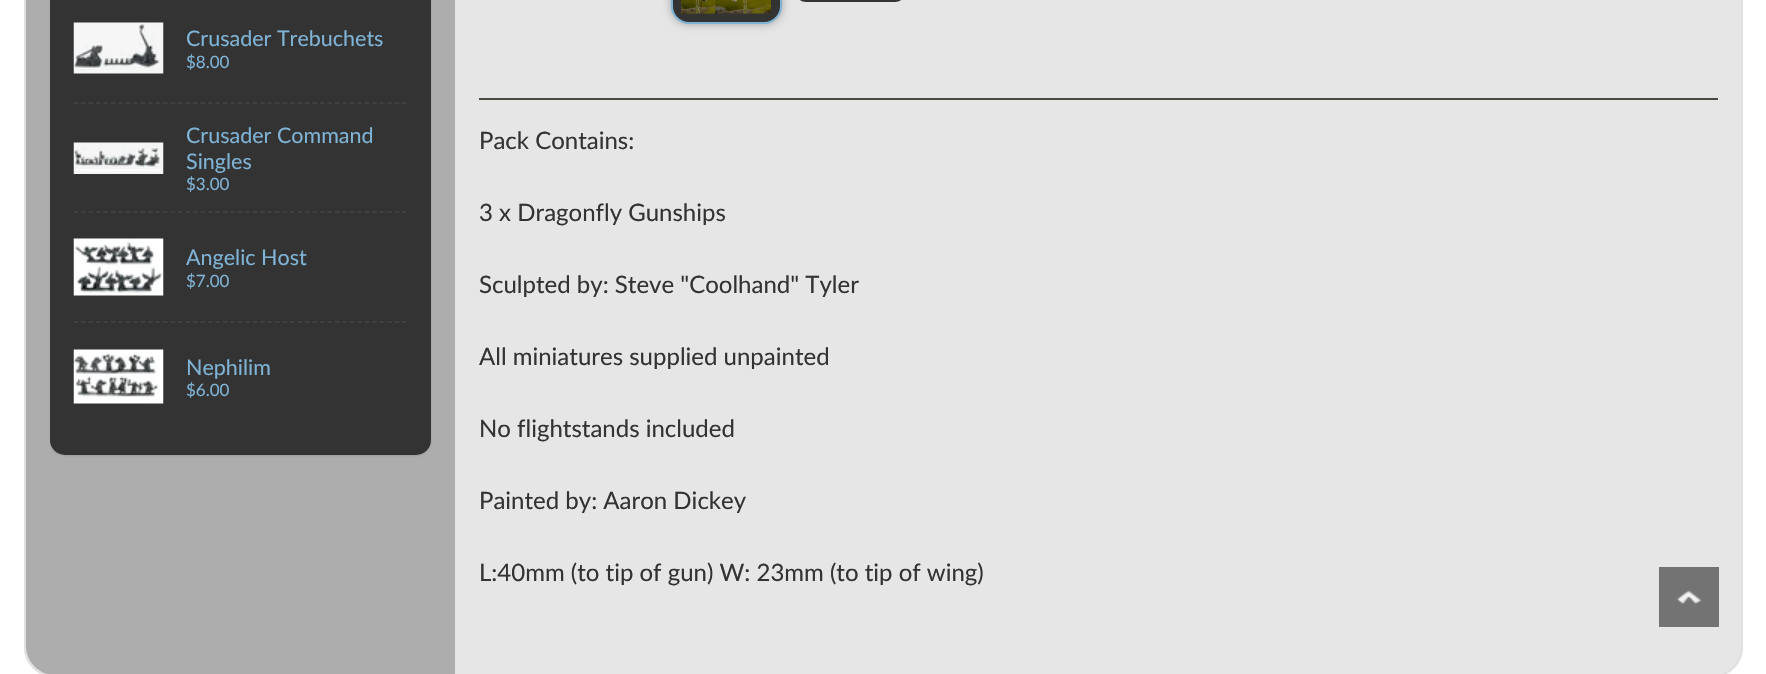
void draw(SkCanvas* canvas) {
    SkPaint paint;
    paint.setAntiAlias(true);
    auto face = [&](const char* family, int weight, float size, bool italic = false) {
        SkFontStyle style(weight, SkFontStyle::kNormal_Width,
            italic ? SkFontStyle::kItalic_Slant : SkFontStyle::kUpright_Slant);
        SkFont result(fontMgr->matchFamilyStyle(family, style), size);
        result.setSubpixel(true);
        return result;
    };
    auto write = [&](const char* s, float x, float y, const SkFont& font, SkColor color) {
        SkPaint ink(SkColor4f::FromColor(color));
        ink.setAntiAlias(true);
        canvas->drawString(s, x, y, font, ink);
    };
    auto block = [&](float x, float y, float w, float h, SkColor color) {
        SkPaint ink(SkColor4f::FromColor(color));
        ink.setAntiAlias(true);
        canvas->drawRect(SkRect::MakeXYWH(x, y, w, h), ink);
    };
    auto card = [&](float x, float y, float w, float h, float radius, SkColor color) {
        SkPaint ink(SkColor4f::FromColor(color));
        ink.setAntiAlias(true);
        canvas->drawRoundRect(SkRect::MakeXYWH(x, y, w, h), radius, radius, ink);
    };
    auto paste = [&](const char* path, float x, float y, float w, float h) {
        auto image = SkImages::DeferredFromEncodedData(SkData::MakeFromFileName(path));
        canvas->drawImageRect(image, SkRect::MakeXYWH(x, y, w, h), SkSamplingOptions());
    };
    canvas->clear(SK_ColorWHITE);
    card(24, -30, 1719, 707, 30, SkColorSetRGB(230, 230, 230));
    paint.setStyle(SkPaint::kStroke_Style);
    paint.setStrokeWidth(2);
    paint.setColor(SkColorSetARGB(179, 221, 221, 221));
    canvas->drawRoundRect(SkRect::MakeXYWH(25, -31, 1717, 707), 29, 29, paint);
    paint.setStyle(SkPaint::kFill_Style);
    paint.setColor(SkColorSetRGB(173, 173, 173));
    canvas->drawPath(SkPathBuilder().moveTo(55, -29).lineTo(455, -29).lineTo(455, 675).lineTo(55, 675).cubicTo(39, 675, 26, 662, 26, 646).lineTo(26, 0).cubicTo(26, -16, 39, -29, 55, -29).close().detach(), paint);
    paint.setColor(SkColorSetARGB(26, 0, 0, 0));
    paint.setMaskFilter(SkMaskFilter::MakeBlur(kNormal_SkBlurStyle, 1));
    canvas->drawRoundRect(SkRect::MakeXYWH(50, -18, 381, 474), 15, 15, paint);
    paint.setMaskFilter(nullptr);
    card(50, -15, 381, 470, 15, SkColorSetRGB(51, 51, 51));
    paste("pic1.png", 73, 22, 91, 52);
    auto kFont1 = face("Lato", 400, 21.5f);
    write("Crusader Trebuchets", 186, 46, kFont1, SkColorSetRGB(127, 179, 213));
    auto kFont2 = face("Lato", 400, 17);
    write("$8.00", 186, 68, kFont2, SkColorSetRGB(127, 179, 213));
    paint.setStyle(SkPaint::kStroke_Style);
    paint.setStrokeWidth(1.5f);
    paint.setColor(SkColorSetRGB(68, 68, 68));
    paint.setPathEffect(SkDashPathEffect::Make({{4.5f, 2.97f}}, 0));
    canvas->drawPath(SkPathBuilder().moveTo(73.5f, 103).lineTo(406.5f, 103).detach(), paint);
    paint.setPathEffect(nullptr);
    paste("pic2.png", 73, 142, 91, 32);
    write("Crusader Command", 186, 143, kFont1, SkColorSetRGB(127, 179, 213));
    write("Singles", 186, 169, kFont1, SkColorSetRGB(127, 179, 213));
    write("$3.00", 186, 190, kFont2, SkColorSetRGB(127, 179, 213));
    paint.setPathEffect(SkDashPathEffect::Make({{4.5f, 2.97f}}, 0));
    canvas->drawPath(SkPathBuilder().moveTo(73.5f, 212).lineTo(406.5f, 212).detach(), paint);
    paint.setPathEffect(nullptr);
    paste("pic3.png", 73, 238, 91, 58);
    write("Angelic Host", 186, 265, kFont1, SkColorSetRGB(127, 179, 213));
    write("$7.00", 186, 287, kFont2, SkColorSetRGB(127, 179, 213));
    paint.setPathEffect(SkDashPathEffect::Make({{4.5f, 2.97f}}, 0));
    canvas->drawPath(SkPathBuilder().moveTo(73.5f, 322).lineTo(406.5f, 322).detach(), paint);
    paint.setPathEffect(nullptr);
    paste("pic4.png", 73, 349, 91, 55);
    write("Nephilim", 186, 375, kFont1, SkColorSetRGB(127, 179, 213));
    write("$6.00", 186, 396, kFont2, SkColorSetRGB(127, 179, 213));
    paint.setStyle(SkPaint::kFill_Style);
    paint.setColor(SkColorSetARGB(77, 0, 0, 0));
    paint.setMaskFilter(SkMaskFilter::MakeBlur(kNormal_SkBlurStyle, 4.5f));
    canvas->drawRoundRect(SkRect::MakeXYWH(671, -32, 111, 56), 18, 18, paint);
    paint.setMaskFilter(nullptr);
    paint.setColor(SkColorSetRGB(51, 51, 51));
    canvas->drawRoundRect(SkRect::MakeXYWH(672, -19, 109, 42), 17, 17, paint);
    paint.setStyle(SkPaint::kStroke_Style);
    paint.setStrokeWidth(2);
    paint.setColor(SkColorSetRGB(127, 179, 213));
    canvas->drawRoundRect(SkRect::MakeXYWH(672, -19, 109, 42), 17, 17, paint);
    paste("pic5.png", 681, 0, 90, 14);
    paint.setColor(SkColorSetRGB(51, 51, 51));
    canvas->drawRoundRect(SkRect::MakeXYWH(796, -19, 109, 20), 17, 17, paint);
    block(479, 98, 1239, 2, SkColorSetRGB(75, 73, 66));
    auto kFont3 = face("Lato", 400, 24);
    write("Pack Contains:", 479, 149, kFont3, SkColorSetRGB(51, 51, 51));
    write("3 x Dragonfly Gunships", 479, 221, kFont3, SkColorSetRGB(51, 51, 51));
    write("Sculpted by: Steve \"Coolhand\" Tyler", 479, 293, kFont3, SkColorSetRGB(51, 51, 51));
    write("All miniatures supplied unpainted", 479, 365, kFont3, SkColorSetRGB(51, 51, 51));
    write("No flightstands included", 479, 437, kFont3, SkColorSetRGB(51, 51, 51));
    write("Painted by: Aaron Dickey", 479, 509, kFont3, SkColorSetRGB(51, 51, 51));
    write("L:40mm (to tip of gun) W: 23mm (to tip of wing)", 479, 581, kFont3, SkColorSetRGB(51, 51, 51));
    paste("pic6.png", 1659, 567, 60, 60);
}
